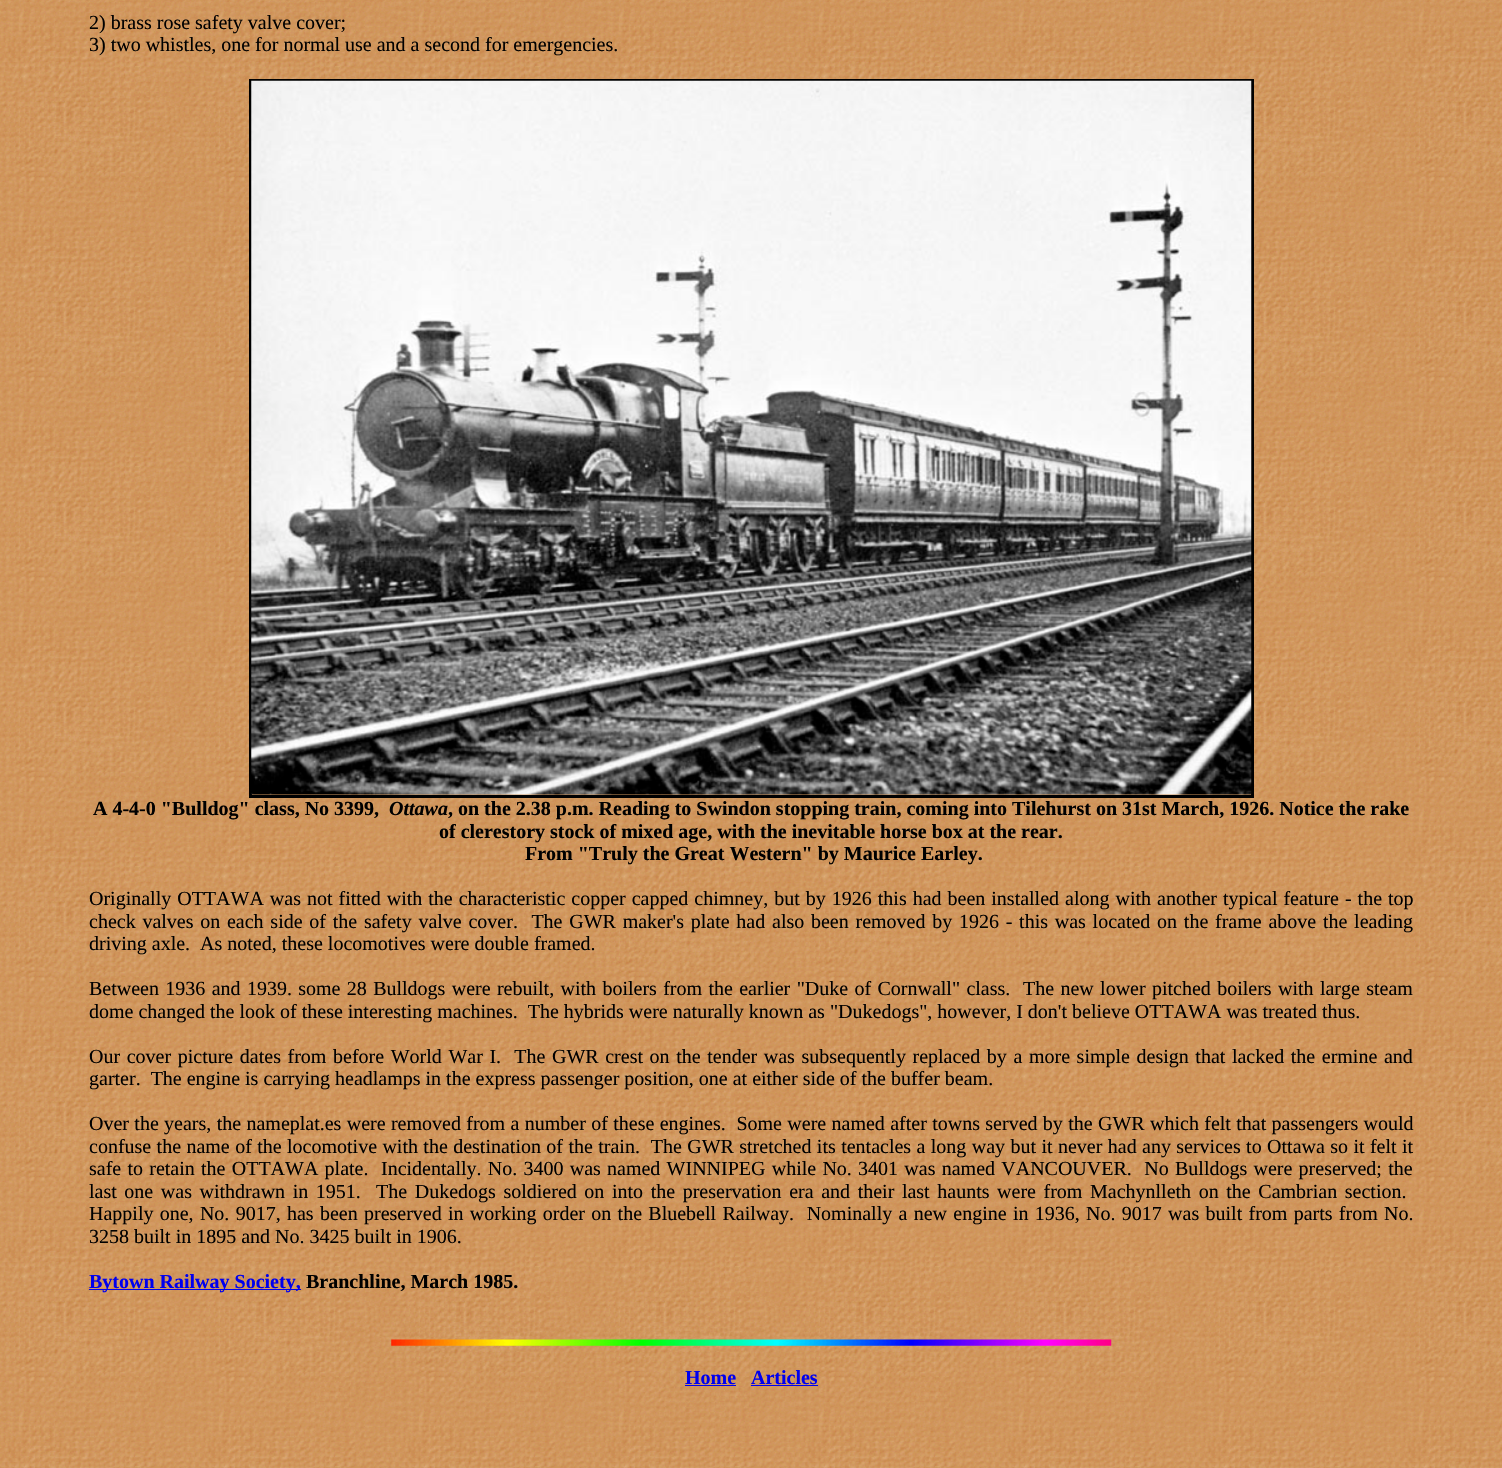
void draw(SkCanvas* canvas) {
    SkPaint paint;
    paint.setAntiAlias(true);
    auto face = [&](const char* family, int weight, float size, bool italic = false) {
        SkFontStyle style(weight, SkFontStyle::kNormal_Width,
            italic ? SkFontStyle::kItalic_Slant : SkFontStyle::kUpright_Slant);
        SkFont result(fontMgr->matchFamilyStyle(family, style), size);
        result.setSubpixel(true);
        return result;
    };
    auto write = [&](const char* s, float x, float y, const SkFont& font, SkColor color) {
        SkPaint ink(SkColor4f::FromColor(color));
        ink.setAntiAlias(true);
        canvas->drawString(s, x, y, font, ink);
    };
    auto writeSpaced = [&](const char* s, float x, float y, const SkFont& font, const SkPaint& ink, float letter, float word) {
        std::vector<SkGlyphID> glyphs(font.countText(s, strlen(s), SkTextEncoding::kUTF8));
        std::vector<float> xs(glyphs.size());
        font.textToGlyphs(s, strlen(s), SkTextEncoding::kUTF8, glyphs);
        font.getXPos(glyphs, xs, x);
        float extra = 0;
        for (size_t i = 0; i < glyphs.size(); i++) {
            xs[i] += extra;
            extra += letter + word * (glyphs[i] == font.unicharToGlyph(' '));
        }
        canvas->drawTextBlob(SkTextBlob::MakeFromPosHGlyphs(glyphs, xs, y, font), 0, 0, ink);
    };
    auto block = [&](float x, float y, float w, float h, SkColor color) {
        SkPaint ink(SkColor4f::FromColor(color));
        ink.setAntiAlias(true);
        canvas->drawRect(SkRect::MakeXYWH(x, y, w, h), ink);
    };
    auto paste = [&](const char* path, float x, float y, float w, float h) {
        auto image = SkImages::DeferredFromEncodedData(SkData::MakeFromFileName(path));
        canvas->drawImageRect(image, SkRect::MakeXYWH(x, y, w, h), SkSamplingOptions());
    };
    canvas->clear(SK_ColorWHITE);
    paste("pic1.png", 0, 0, 1502, 1468);
    auto kFont1 = face("Liberation Serif", 400, 20);
    write("2) brass rose safety valve cover;", 89, 29, kFont1, SK_ColorBLACK);
    write("3) two whistles, one for normal use and a second for emergencies.", 89, 51, kFont1, SK_ColorBLACK);
    paint.setStyle(SkPaint::kStroke_Style);
    paint.setStrokeWidth(3);
    paint.setColor(SK_ColorBLACK);
    canvas->drawRect(SkRect::MakeXYWH(250.5f, 80.5f, 1002, 716), paint);
    paste("pic2.png", 251, 80, 1001, 715);
    auto kFont2 = face("Liberation Serif", 700, 20);
    write("A 4-4-0 \"Bulldog\" class, No 3399,", 93, 815, kFont2, SK_ColorBLACK);
    auto kFont3 = face("Liberation Serif", 700, 20, true);
    write("Ottawa", 389, 815, kFont3, SK_ColorBLACK);
    write(", on the 2.38 p.m. Reading to Swindon stopping train, coming into Tilehurst on 31st March, 1926. Notice the rake", 448, 815, kFont2, SK_ColorBLACK);
    write("of clerestory stock of mixed age, with the inevitable horse box at the rear.", 439, 838, kFont2, SK_ColorBLACK);
    write("From \"Truly the Great Western\" by Maurice Earley.", 525, 860, kFont2, SK_ColorBLACK);
    paint.setStyle(SkPaint::kFill_Style);
    writeSpaced("Originally OTTAWA was not fitted with the characteristic copper capped chimney, but by 1926 this had been installed along with another typical feature - the top", 89, 905, kFont1, paint, 0, 1);
    writeSpaced("check valves on each side of the safety valve cover.  The GWR maker's plate had also been removed by 1926 - this was located on the frame above the leading", 89, 928, kFont1, paint, 0, 1.75f);
    write("driving axle.  As noted, these locomotives were double framed.", 89, 950, kFont1, SK_ColorBLACK);
    writeSpaced("Between 1936 and 1939. some 28 Bulldogs were rebuilt, with boilers from the earlier \"Duke of Cornwall\" class.  The new lower pitched boilers with large steam", 89, 995, kFont1, paint, 0, 1.35f);
    write("dome changed the look of these interesting machines.  The hybrids were naturally known as \"Dukedogs\", however, I don't believe OTTAWA was treated thus.", 89, 1018, kFont1, SK_ColorBLACK);
    writeSpaced("Our cover picture dates from before World War I.  The GWR crest on the tender was subsequently replaced by a more simple design that lacked the ermine and", 89, 1063, kFont1, paint, 0, 1.6f);
    write("garter.  The engine is carrying headlamps in the express passenger position, one at either side of the buffer beam.", 89, 1085, kFont1, SK_ColorBLACK);
    writeSpaced("Over the years, the nameplat.es were removed from a number of these engines.  Some were named after towns served by the GWR which felt that passengers would", 89, 1130, kFont1, paint, 0, 0.35f);
    writeSpaced("confuse the name of the locomotive with the destination of the train.  The GWR stretched its tentacles a long way but it never had any services to Ottawa so it felt it", 89, 1153, kFont1, paint, 0, 0.4f);
    writeSpaced("safe to retain the OTTAWA plate.  Incidentally. No. 3400 was named WINNIPEG while No. 3401 was named VANCOUVER.  No Bulldogs were preserved; the", 89, 1175, kFont1, paint, 0, 1.25f);
    writeSpaced("last one was withdrawn in 1951.  The Dukedogs soldiered on into the preservation era and their last haunts were from Machynlleth on the Cambrian section.", 89, 1198, kFont1, paint, 0, 2.6f);
    writeSpaced("Happily one, No. 9017, has been preserved in working order on the Bluebell Railway.  Nominally a new engine in 1936, No. 9017 was built from parts from No.", 89, 1220, kFont1, paint, 0, 1.3f);
    write("3258 built in 1895 and No. 3425 built in 1906.", 89, 1243, kFont1, SK_ColorBLACK);
    block(89, 1289, 212, 1, SkColorSetRGB(0, 0, 238));
    write("Bytown Railway Society,", 89, 1288, kFont2, SkColorSetRGB(0, 0, 238));
    write("Branchline, March 1985.", 306, 1288, kFont2, SK_ColorBLACK);
    paste("pic3.png", 391, 1339, 721, 7);
    write("Home", 685, 1384, kFont2, SkColorSetRGB(0, 0, 238));
    block(685, 1385, 51, 1, SkColorSetRGB(0, 0, 238));
    write("Articles", 751, 1384, kFont2, SkColorSetRGB(0, 0, 238));
    block(751, 1385, 67, 1, SkColorSetRGB(0, 0, 238));
}
